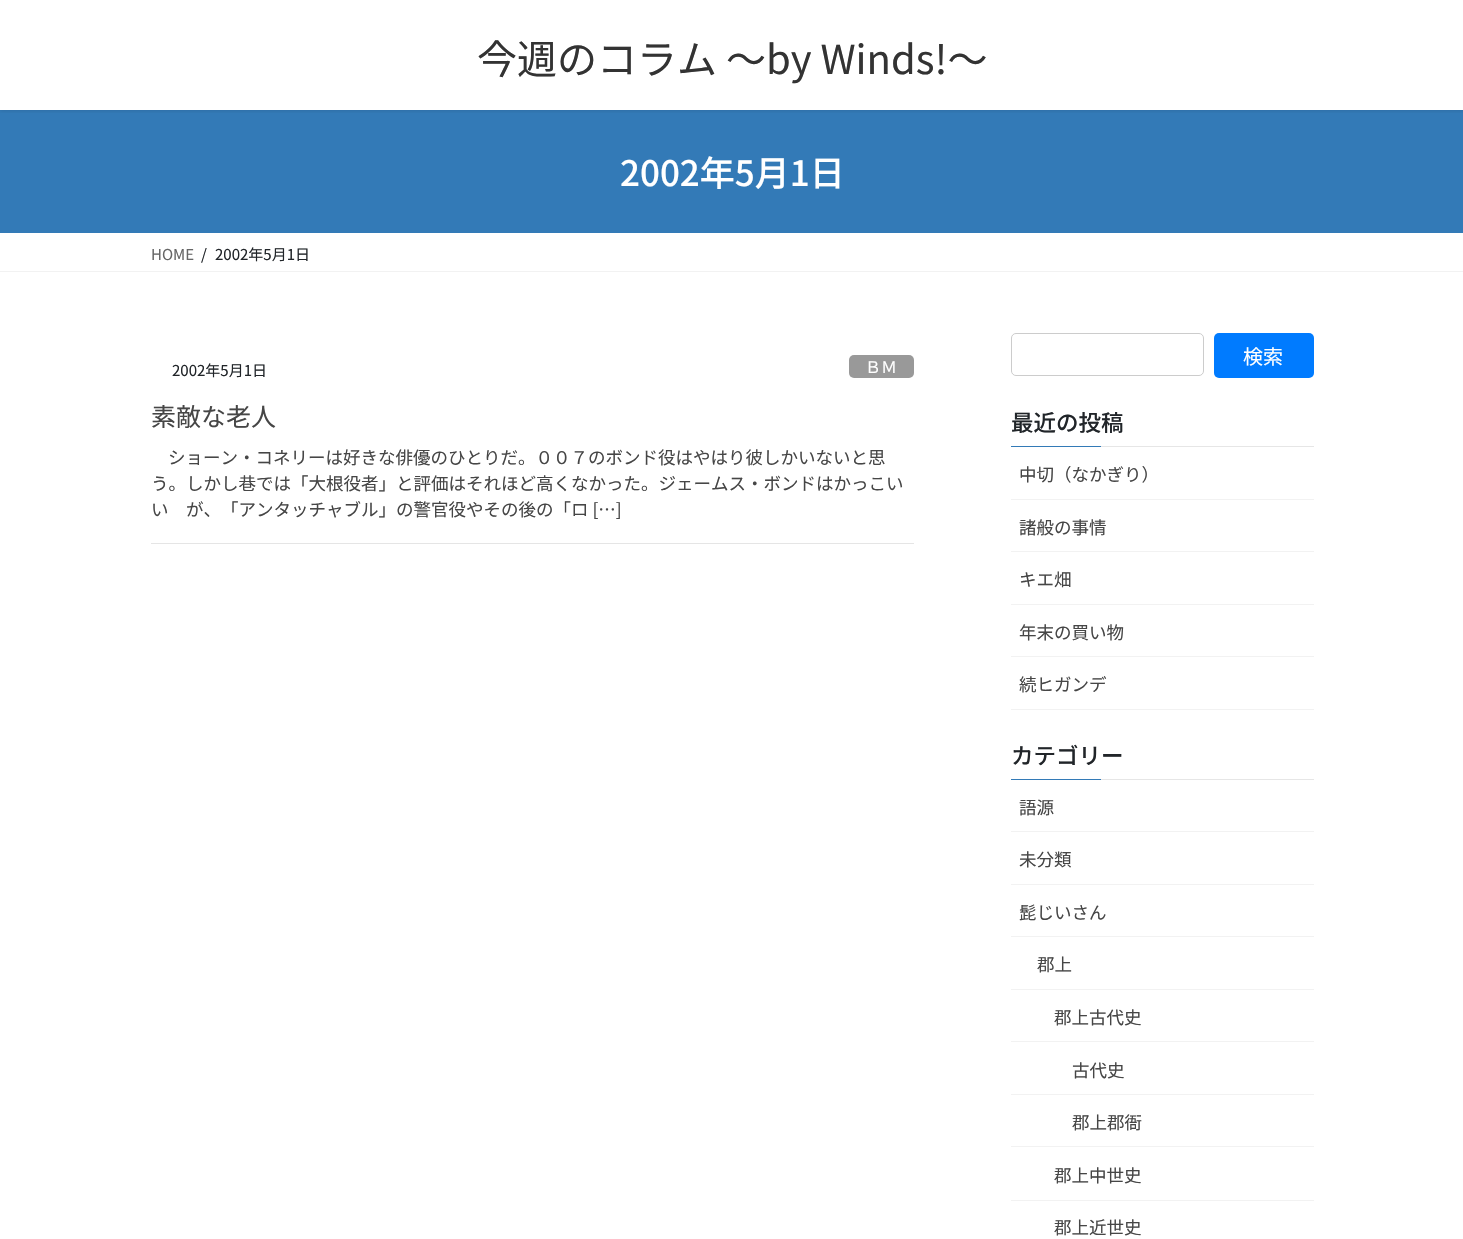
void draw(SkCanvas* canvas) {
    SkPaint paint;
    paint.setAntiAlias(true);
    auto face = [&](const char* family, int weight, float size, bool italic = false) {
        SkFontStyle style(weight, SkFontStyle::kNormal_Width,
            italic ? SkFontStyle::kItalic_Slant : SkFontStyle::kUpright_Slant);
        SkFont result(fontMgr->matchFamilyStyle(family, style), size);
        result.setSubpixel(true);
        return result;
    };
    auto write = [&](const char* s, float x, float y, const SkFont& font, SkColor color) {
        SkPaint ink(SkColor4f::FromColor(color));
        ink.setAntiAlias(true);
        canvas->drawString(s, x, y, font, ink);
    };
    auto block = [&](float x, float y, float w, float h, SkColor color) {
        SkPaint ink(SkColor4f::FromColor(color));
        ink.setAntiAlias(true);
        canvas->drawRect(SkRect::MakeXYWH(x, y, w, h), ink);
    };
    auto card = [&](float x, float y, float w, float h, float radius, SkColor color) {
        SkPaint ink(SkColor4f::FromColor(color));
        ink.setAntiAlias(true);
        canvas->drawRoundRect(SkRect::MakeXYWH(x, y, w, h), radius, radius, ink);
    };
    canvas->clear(SK_ColorWHITE);
    block(0, 110, 1463, 123, SkColorSetRGB(51, 122, 183));
    canvas->save();
    canvas->clipRect(SkRect::MakeXYWH(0, 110, 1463, 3));
    paint.setColor(SkColorSetARGB(26, 0, 0, 0));
    paint.setMaskFilter(SkMaskFilter::MakeBlur(kNormal_SkBlurStyle, 2));
    canvas->drawRect(SkRect::MakeXYWH(0, 1, 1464, 110), paint);
    paint.setMaskFilter(nullptr);
    canvas->restore();
    auto kFont1 = face("Noto Sans JP", 400, 40);
    write("今週のコラム ～by Winds!～", 477, 74, kFont1, SkColorSetRGB(51, 51, 51));
    auto kFont2 = face("Noto Sans JP", 500, 35);
    write("2002年5月1日", 620, 186, kFont2, SK_ColorWHITE);
    block(0, 271, 1463, 1, SkColorSetRGB(242, 242, 242));
    auto kFont3 = face("Noto Sans JP", 400, 15);
    write("HOME", 151, 260, kFont3, SkColorSetRGB(102, 102, 102));
    write("/", 201, 260, kFont3, SkColorSetRGB(33, 37, 41));
    write("2002年5月1日", 215, 260, kFont3, SkColorSetRGB(33, 37, 41));
    block(151, 543, 763, 1, SkColorSetRGB(229, 229, 229));
    write("2002年5月1日", 172, 376, kFont3, SkColorSetRGB(33, 37, 41));
    card(849, 355, 65, 23, 5, SkColorSetRGB(153, 153, 153));
    auto kFont4 = face("Noto Sans JP", 400, 16);
    write("ＢＭ", 865, 373, kFont4, SK_ColorWHITE);
    auto kFont5 = face("Noto Sans JP", 400, 25);
    write("素敵な老人", 151, 426, kFont5, SkColorSetRGB(70, 70, 70));
    auto kFont6 = face("Noto Sans JP", 400, 17.5f);
    write("ショーン・コネリーは好きな俳優のひとりだ。００７のボンド役はやはり彼しかいないと思", 168, 464, kFont6, SkColorSetRGB(70, 70, 70));
    write("う。しかし巷では「大根役者」と評価はそれほど高くなかった。ジェームス・ボンドはかっこい", 151, 490, kFont6, SkColorSetRGB(70, 70, 70));
    write("い　が、「アンタッチャブル」の警官役やその後の「ロ […]", 151, 516, kFont6, SkColorSetRGB(70, 70, 70));
    paint.setStyle(SkPaint::kStroke_Style);
    paint.setStrokeWidth(1);
    paint.setColor(SkColorSetRGB(204, 204, 204));
    canvas->drawRoundRect(SkRect::MakeXYWH(1011.5f, 333.5f, 192, 42), 4.5f, 4.5f, paint);
    card(1214, 333, 100, 45, 5, SkColorSetRGB(0, 123, 255));
    auto kFont7 = face("Noto Sans JP", 400, 20);
    write("検索", 1243, 364, kFont7, SK_ColorWHITE);
    block(1101, 446, 213, 1, SkColorSetRGB(230, 230, 230));
    auto kFont8 = face("Noto Sans JP", 500, 22.5f);
    write("最近の投稿", 1011, 431, kFont8, SkColorSetRGB(33, 37, 41));
    block(1011, 446, 90, 1, SkColorSetRGB(51, 122, 183));
    block(1011, 499, 303, 1, SkColorSetRGB(242, 242, 242));
    write("中切（なかぎり）", 1019, 481, kFont6, SkColorSetRGB(70, 70, 70));
    block(1011, 551, 303, 1, SkColorSetRGB(242, 242, 242));
    write("諸般の事情", 1019, 534, kFont6, SkColorSetRGB(70, 70, 70));
    block(1011, 604, 303, 1, SkColorSetRGB(242, 242, 242));
    write("キエ畑", 1019, 586, kFont6, SkColorSetRGB(70, 70, 70));
    block(1011, 656, 303, 1, SkColorSetRGB(242, 242, 242));
    write("年末の買い物", 1019, 639, kFont6, SkColorSetRGB(70, 70, 70));
    block(1011, 709, 303, 1, SkColorSetRGB(242, 242, 242));
    write("続ヒガンデ", 1019, 691, kFont6, SkColorSetRGB(70, 70, 70));
    block(1101, 779, 213, 1, SkColorSetRGB(230, 230, 230));
    write("カテゴリー", 1011, 764, kFont8, SkColorSetRGB(33, 37, 41));
    block(1011, 779, 90, 1, SkColorSetRGB(51, 122, 183));
    block(1011, 831, 303, 1, SkColorSetRGB(242, 242, 242));
    write("語源", 1019, 814, kFont6, SkColorSetRGB(70, 70, 70));
    block(1011, 884, 303, 1, SkColorSetRGB(242, 242, 242));
    write("未分類", 1019, 866, kFont6, SkColorSetRGB(70, 70, 70));
    block(1011, 936, 303, 1, SkColorSetRGB(242, 242, 242));
    write("髭じいさん", 1019, 919, kFont6, SkColorSetRGB(70, 70, 70));
    block(1011, 989, 303, 1, SkColorSetRGB(242, 242, 242));
    write("郡上", 1037, 971, kFont6, SkColorSetRGB(70, 70, 70));
    block(1011, 1041, 303, 1, SkColorSetRGB(242, 242, 242));
    write("郡上古代史", 1054, 1024, kFont6, SkColorSetRGB(70, 70, 70));
    block(1011, 1094, 303, 1, SkColorSetRGB(242, 242, 242));
    write("古代史", 1072, 1077, kFont6, SkColorSetRGB(70, 70, 70));
    block(1011, 1146, 303, 1, SkColorSetRGB(242, 242, 242));
    write("郡上郡衙", 1072, 1129, kFont6, SkColorSetRGB(70, 70, 70));
    block(1011, 1200, 303, 1, SkColorSetRGB(242, 242, 242));
    write("郡上中世史", 1054, 1182, kFont6, SkColorSetRGB(70, 70, 70));
    write("郡上近世史", 1054, 1234, kFont6, SkColorSetRGB(70, 70, 70));
}
